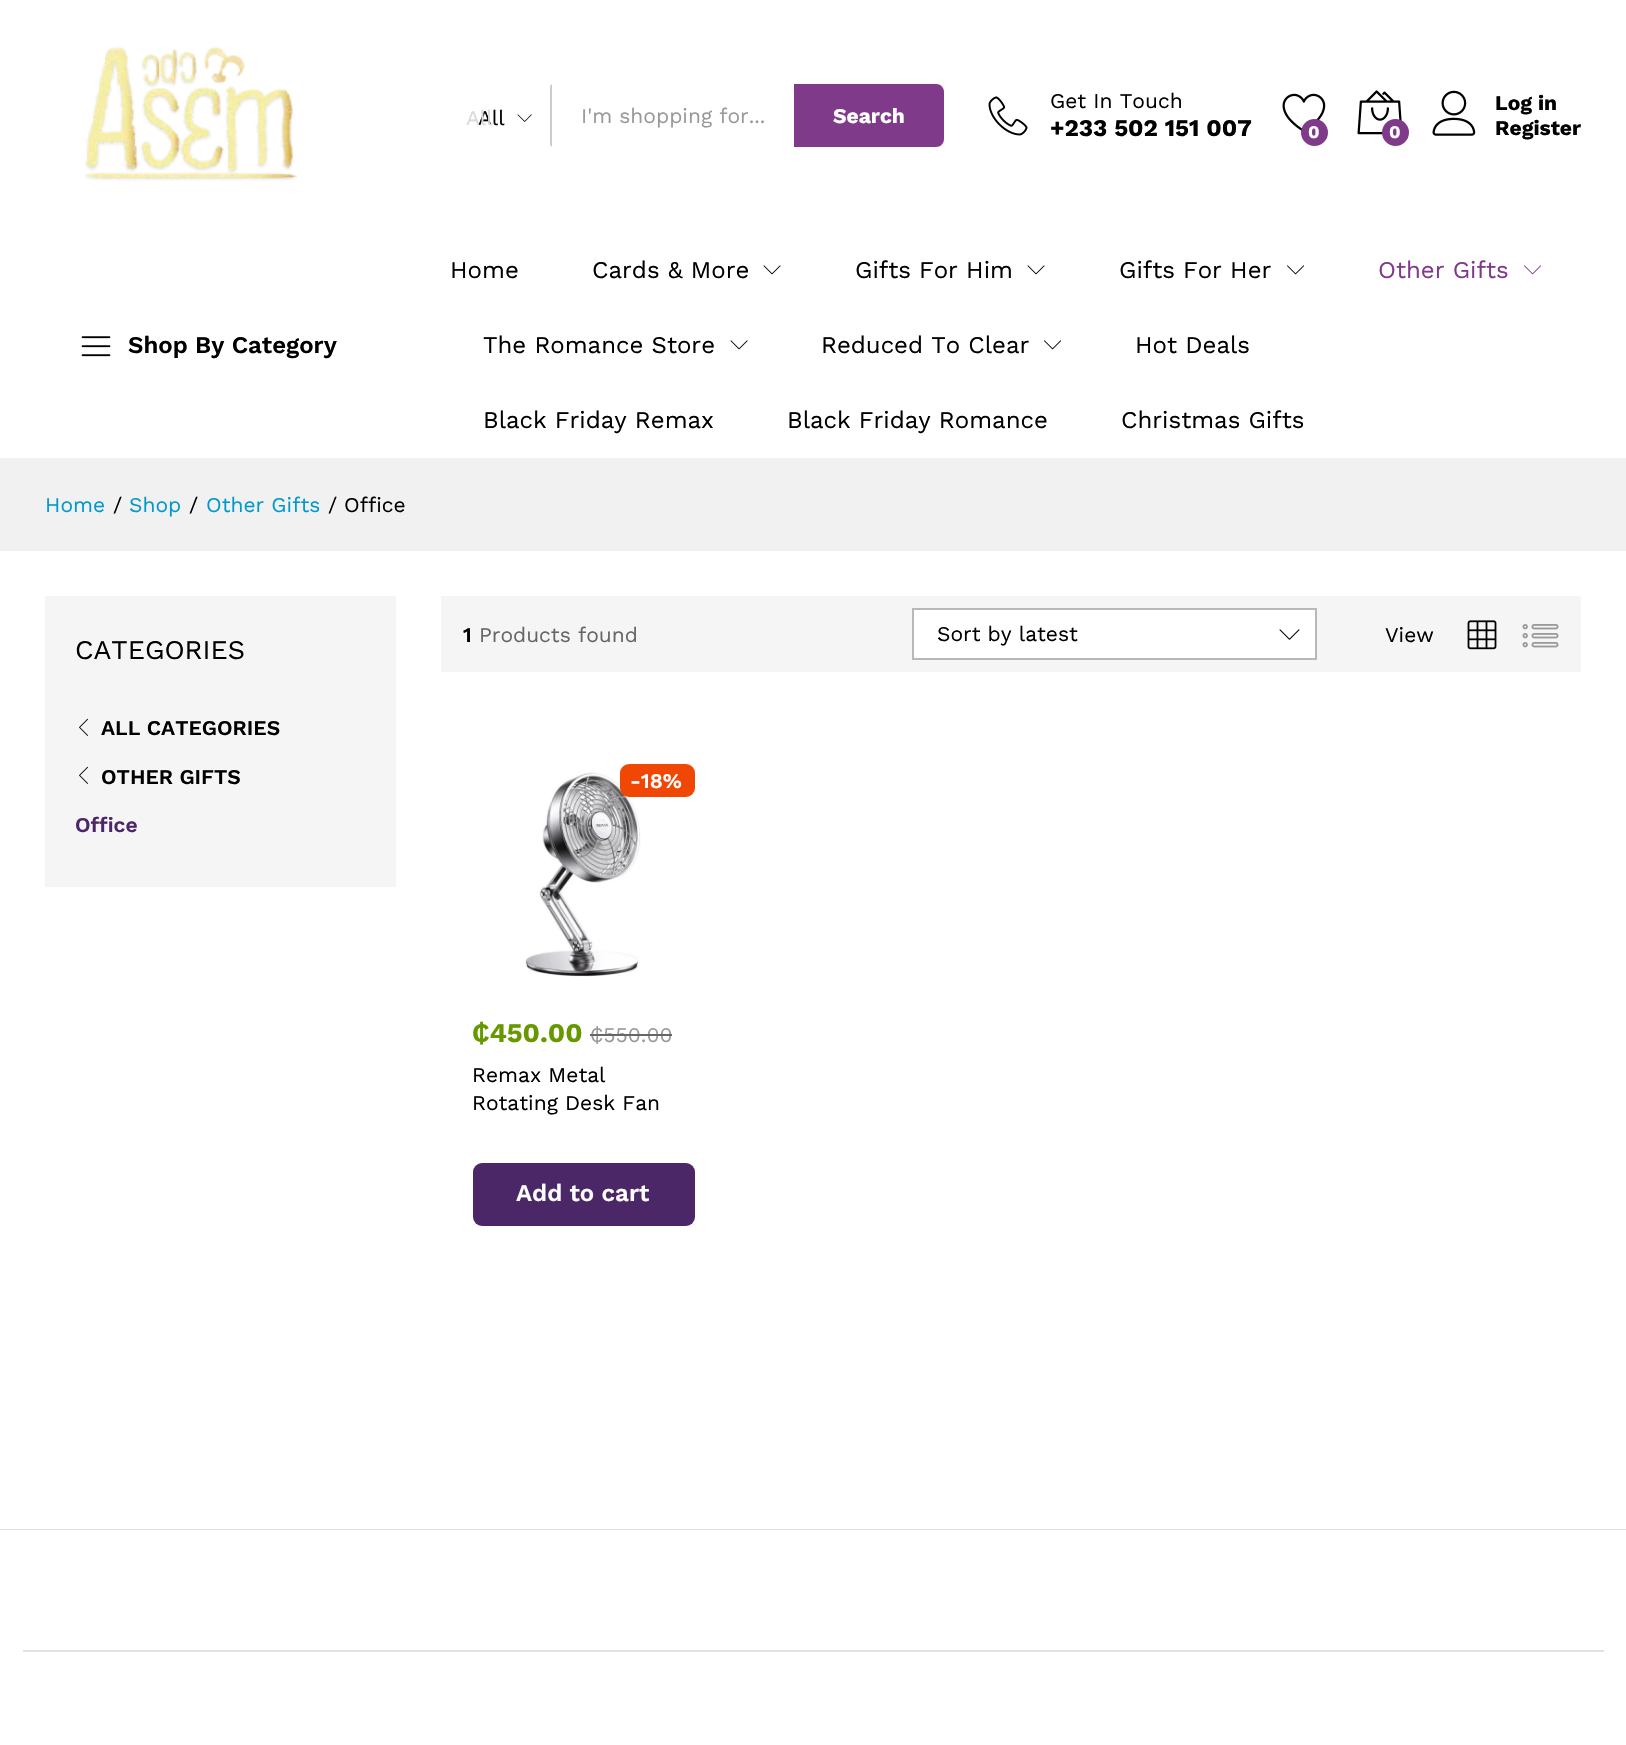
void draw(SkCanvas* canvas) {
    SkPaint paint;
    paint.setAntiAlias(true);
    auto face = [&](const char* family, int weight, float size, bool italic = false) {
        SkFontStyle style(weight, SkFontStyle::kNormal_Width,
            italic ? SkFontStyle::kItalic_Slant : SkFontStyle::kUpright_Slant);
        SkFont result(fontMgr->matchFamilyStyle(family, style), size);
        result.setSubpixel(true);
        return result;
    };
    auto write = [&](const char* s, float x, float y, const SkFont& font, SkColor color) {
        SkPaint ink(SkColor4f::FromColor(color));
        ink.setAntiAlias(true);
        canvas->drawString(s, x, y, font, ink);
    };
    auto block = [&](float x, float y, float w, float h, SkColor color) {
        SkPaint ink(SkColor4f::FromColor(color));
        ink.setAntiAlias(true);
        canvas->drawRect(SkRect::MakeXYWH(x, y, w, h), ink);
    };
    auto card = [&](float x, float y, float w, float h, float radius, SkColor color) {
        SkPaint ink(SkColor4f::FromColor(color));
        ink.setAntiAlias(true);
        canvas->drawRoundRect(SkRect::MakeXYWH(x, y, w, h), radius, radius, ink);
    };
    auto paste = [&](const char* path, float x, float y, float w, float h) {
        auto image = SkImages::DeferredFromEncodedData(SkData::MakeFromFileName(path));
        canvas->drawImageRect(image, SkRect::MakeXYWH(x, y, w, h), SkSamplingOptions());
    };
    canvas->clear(SK_ColorWHITE);
    paste("pic1.png", 84, 46, 214, 135);
    auto kFont1 = face("Work Sans", 400, 21);
    write("All", 478, 125, kFont1, SK_ColorBLACK);
    write("All", 466, 125, kFont1, SkColorSetRGB(217, 217, 217));
    paint.setColor(SkColorSetRGB(204, 204, 204));
    canvas->drawPath(SkPathBuilder().moveTo(552, 84).lineTo(550, 86).lineTo(550, 145).lineTo(552, 147).close().detach(), paint);
    paste("pic2.png", 517, 114, 15, 8);
    write("I'm shopping for...", 581, 123, kFont1, SkColorSetRGB(153, 153, 153));
    paint.setColor(SkColorSetRGB(127, 58, 138));
    canvas->drawPath(SkPathBuilder().moveTo(794, 84).lineTo(936, 84).cubicTo(940.5f, 84, 944, 87.5f, 944, 92).lineTo(944, 139).cubicTo(944, 143.5f, 940.5f, 147, 936, 147).lineTo(794, 147).close().detach(), paint);
    auto kFont2 = face("Work Sans", 700, 21);
    write("Search", 833, 123, kFont2, SK_ColorWHITE);
    paste("pic3.png", 988, 96, 40, 40);
    write("Get In Touch", 1050, 108, kFont1, SK_ColorBLACK);
    auto kFont3 = face("Work Sans", 700, 24);
    write("+233 502 151 007", 1050, 136, kFont3, SK_ColorBLACK);
    paste("pic4.png", 1282, 93, 44, 38);
    canvas->drawCircle(1314.5f, 132.5f, 13.5f, paint);
    auto kFont4 = face("Work Sans", 700, 18);
    write("0", 1308, 138, kFont4, SK_ColorWHITE);
    paste("pic5.png", 1357, 90, 45, 45);
    canvas->drawCircle(1395.5f, 132.5f, 13.5f, paint);
    write("0", 1389, 138, kFont4, SK_ColorWHITE);
    paste("pic6.png", 1432, 90, 44, 46);
    write("Log in", 1495, 110, kFont2, SK_ColorBLACK);
    write("Register", 1495, 135, kFont2, SK_ColorBLACK);
    paste("pic7.png", 81, 336, 30, 21);
    auto kFont5 = face("Work Sans", 600, 24);
    write("Shop By Category", 128, 353, kFont5, SK_ColorBLACK);
    auto kFont6 = face("Work Sans", 400, 24);
    write("Home", 450, 278, kFont6, SK_ColorBLACK);
    write("Cards & More", 592, 278, kFont6, SK_ColorBLACK);
    paste("pic8.png", 763, 265, 18, 10);
    write("Gifts For Him", 855, 278, kFont6, SK_ColorBLACK);
    paste("pic8.png", 1027, 265, 18, 10);
    write("Gifts For Her", 1119, 278, kFont6, SK_ColorBLACK);
    paste("pic9.png", 1287, 265, 18, 10);
    write("Other Gifts", 1378, 278, kFont6, SkColorSetRGB(127, 58, 138));
    paste("pic10.png", 1524, 265, 18, 10);
    write("The Romance Store", 483, 353, kFont6, SK_ColorBLACK);
    paste("pic8.png", 730, 340, 18, 10);
    write("Reduced To Clear", 821, 353, kFont6, SK_ColorBLACK);
    paste("pic9.png", 1044, 340, 18, 10);
    write("Hot Deals", 1135, 353, kFont6, SK_ColorBLACK);
    write("Black Friday Remax", 483, 428, kFont6, SK_ColorBLACK);
    write("Black Friday Romance", 787, 428, kFont6, SK_ColorBLACK);
    write("Christmas Gifts", 1121, 428, kFont6, SK_ColorBLACK);
    block(0, 458, 1626, 93, SkColorSetRGB(241, 241, 241));
    write("Home", 45, 512, kFont1, SkColorSetRGB(0, 153, 204));
    write("/", 113, 512, kFont1, SK_ColorBLACK);
    write("Shop", 129, 512, kFont1, SkColorSetRGB(0, 153, 204));
    write("/", 189, 512, kFont1, SK_ColorBLACK);
    write("Other Gifts", 206, 512, kFont1, SkColorSetRGB(0, 153, 204));
    write("/", 328, 512, kFont1, SK_ColorBLACK);
    write("Office", 344, 512, kFont1, SK_ColorBLACK);
    block(45, 596, 351, 291, SkColorSetRGB(245, 245, 245));
    auto kFont7 = face("Work Sans", 400, 27);
    write("CATEGORIES", 75, 659, kFont7, SK_ColorBLACK);
    paste("pic11.png", 79, 718, 9, 18);
    auto kFont8 = face("Work Sans", 600, 21);
    write("ALL CATEGORIES", 101, 735, kFont8, SK_ColorBLACK);
    paste("pic11.png", 79, 766, 9, 18);
    write("OTHER GIFTS", 101, 784, kFont8, SK_ColorBLACK);
    write("Office", 75, 832, kFont8, SkColorSetRGB(75, 39, 104));
    block(441, 596, 1140, 76, SkColorSetRGB(245, 245, 245));
    write("1", 463, 642, kFont8, SK_ColorBLACK);
    write("Products found", 479, 642, kFont1, SkColorSetRGB(102, 102, 102));
    paint.setColor(SK_ColorWHITE);
    canvas->drawRect(SkRect::MakeXYWH(913, 609, 403, 50), paint);
    paint.setStyle(SkPaint::kStroke_Style);
    paint.setStrokeWidth(2);
    paint.setColor(SkColorSetRGB(184, 184, 184));
    canvas->drawRect(SkRect::MakeXYWH(913, 609, 403, 50), paint);
    write("Sort by latest", 937, 641, kFont1, SK_ColorBLACK);
    paste("pic12.png", 1279, 629, 21, 11);
    write("View", 1385, 642, kFont1, SK_ColorBLACK);
    paste("pic13.png", 1467, 620, 30, 30);
    paste("pic14.png", 1522, 624, 37, 24);
    paste("pic15.png", 525, 772, 116, 205);
    card(620, 764, 75, 33, 9, SkColorSetRGB(241, 71, 5));
    write("-18%", 630, 788, kFont8, SK_ColorWHITE);
    auto kFont9 = face("Work Sans", 700, 27);
    write("₵450.00", 472, 1042, kFont9, SkColorSetRGB(102, 153, 0));
    write("₵550.00", 590, 1042, kFont1, SkColorSetRGB(153, 153, 153));
    block(590, 1034, 82, 2, SkColorSetRGB(102, 102, 102));
    write("Remax Metal", 472, 1082, kFont1, SK_ColorBLACK);
    write("Rotating Desk Fan", 472, 1110, kFont1, SK_ColorBLACK);
    card(473, 1163, 222, 63, 9, SkColorSetRGB(75, 39, 104));
    write("Add to cart", 516, 1201, kFont5, SK_ColorWHITE);
    block(0, 1529, 1626, 1, SkColorSetRGB(225, 225, 225));
    block(23, 1650, 1581, 2, SkColorSetRGB(225, 225, 225));
}
